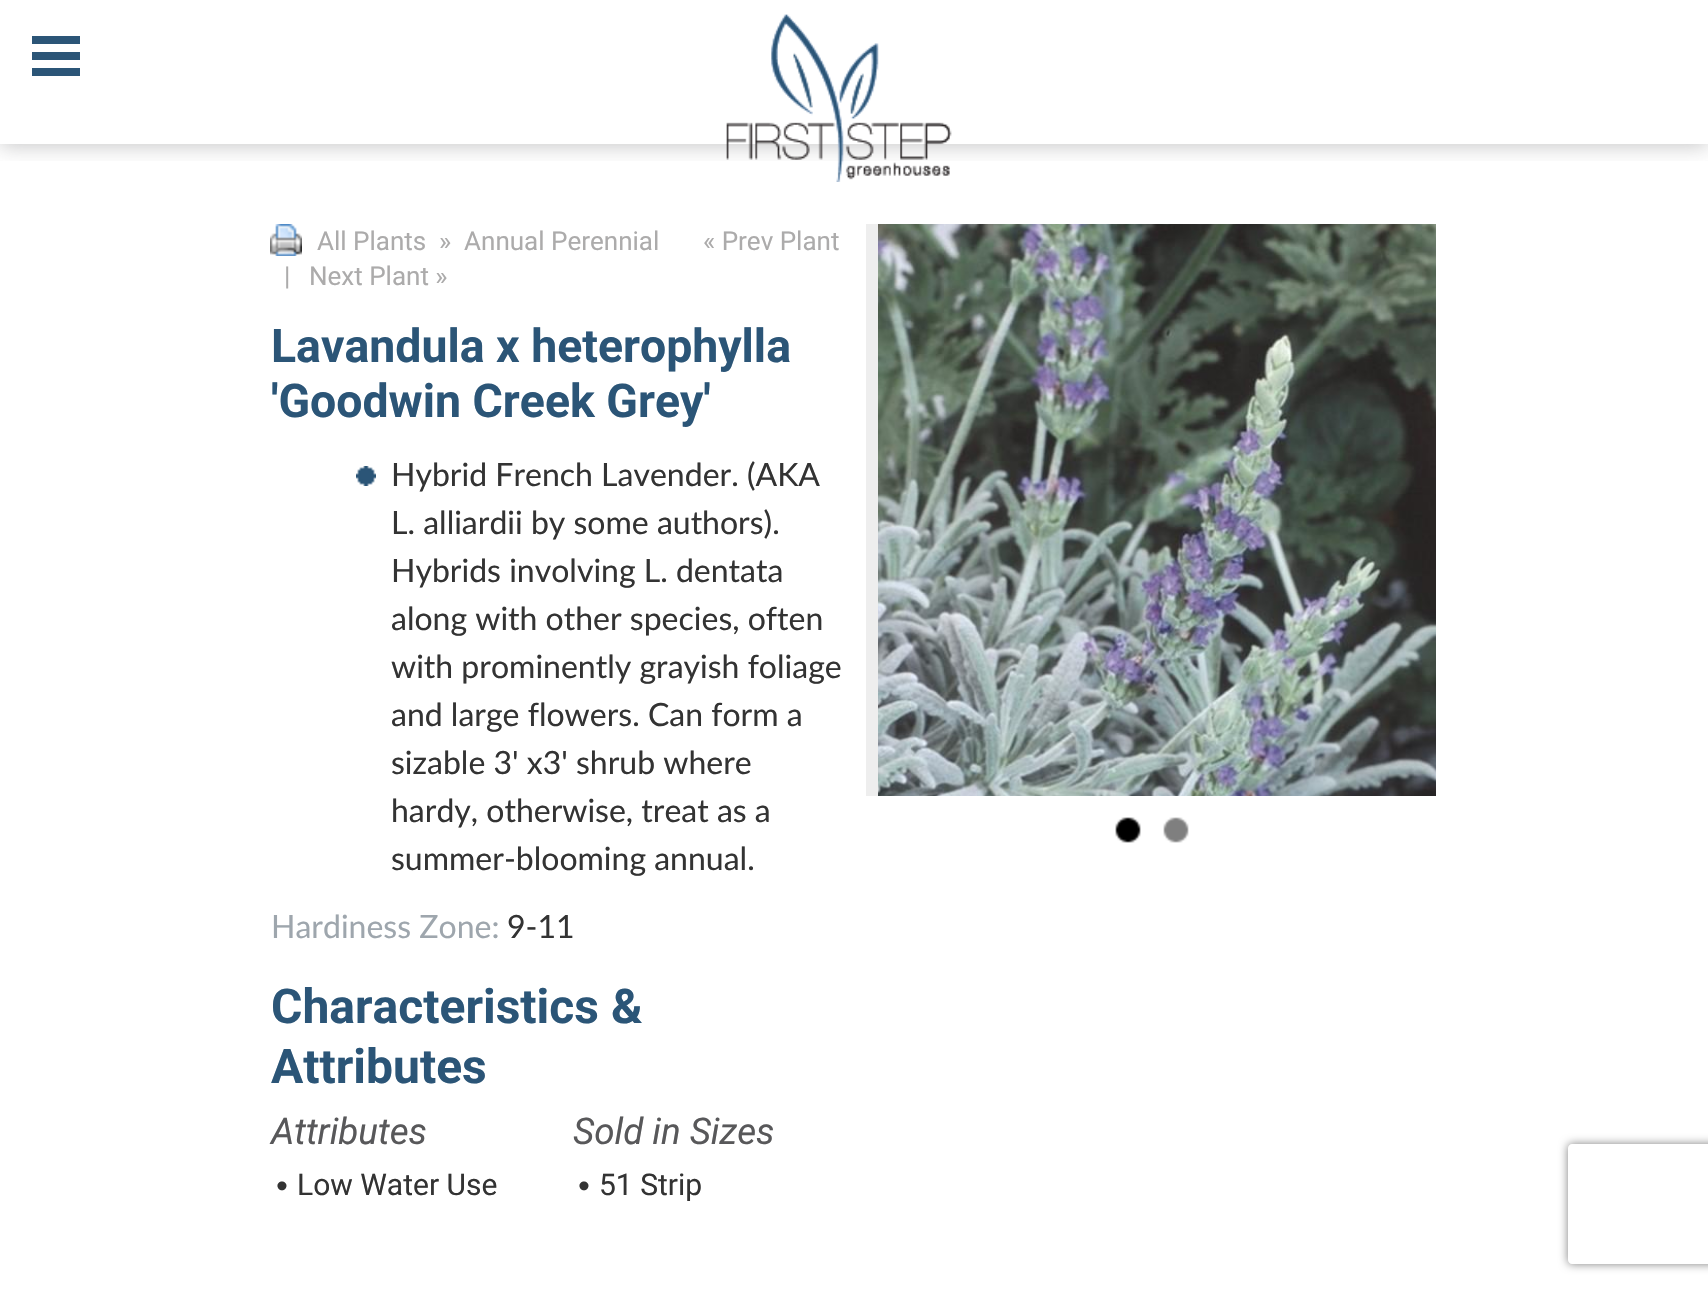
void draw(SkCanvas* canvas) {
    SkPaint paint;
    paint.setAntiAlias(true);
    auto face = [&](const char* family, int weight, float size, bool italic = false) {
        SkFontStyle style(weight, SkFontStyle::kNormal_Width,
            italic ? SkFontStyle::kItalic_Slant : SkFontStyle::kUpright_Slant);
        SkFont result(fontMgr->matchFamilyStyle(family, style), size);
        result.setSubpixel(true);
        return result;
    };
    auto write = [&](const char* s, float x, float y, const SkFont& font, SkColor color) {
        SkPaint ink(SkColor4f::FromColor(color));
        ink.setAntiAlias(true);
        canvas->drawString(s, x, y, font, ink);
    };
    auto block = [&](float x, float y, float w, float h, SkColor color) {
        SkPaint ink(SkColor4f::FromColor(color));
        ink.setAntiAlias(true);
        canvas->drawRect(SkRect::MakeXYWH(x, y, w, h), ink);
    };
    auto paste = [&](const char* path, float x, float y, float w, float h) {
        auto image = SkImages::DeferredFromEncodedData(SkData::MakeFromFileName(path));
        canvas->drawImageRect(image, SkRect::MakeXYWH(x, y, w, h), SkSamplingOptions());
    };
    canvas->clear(SK_ColorWHITE);
    canvas->save();
    canvas->clipRect(SkRect::MakeXYWH(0, 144, 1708, 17));
    paint.setColor(SkColorSetARGB(77, 67, 67, 69));
    paint.setMaskFilter(SkMaskFilter::MakeBlur(kNormal_SkBlurStyle, 10));
    canvas->drawRect(SkRect::MakeXYWH(0, 2, 1708, 144), paint);
    paint.setMaskFilter(nullptr);
    canvas->restore();
    block(32, 52, 48, 8, SkColorSetRGB(43, 85, 119));
    block(32, 36, 48, 8, SkColorSetRGB(43, 85, 119));
    block(32, 68, 48, 8, SkColorSetRGB(43, 85, 119));
    paste("pic1.png", 726, 14, 226, 168);
    paste("pic2.png", 270, 224, 32, 32);
    auto kFont1 = face("Roboto", 400, 26);
    write("All Plants", 317, 250, kFont1, SkColorSetRGB(172, 171, 171));
    write("»  Annual Perennial", 439, 250, kFont1, SkColorSetRGB(172, 171, 171));
    write("« Prev Plant", 703, 250, kFont1, SkColorSetRGB(172, 171, 171));
    write("|", 284, 285, kFont1, SkColorSetRGB(172, 171, 171));
    write("Next Plant »", 309, 285, kFont1, SkColorSetRGB(172, 171, 171));
    auto kFont2 = face("Roboto", 700, 46.4f);
    write("Lavandula x heterophylla", 271, 362, kFont2, SkColorSetRGB(43, 85, 119));
    write("'Goodwin Creek Grey'", 271, 417, kFont2, SkColorSetRGB(43, 85, 119));
    paste("pic3.png", 356, 466, 20, 20);
    auto kFont3 = face("Lato", 400, 32);
    write("Hybrid French Lavender. (AKA", 391, 486, kFont3, SkColorSetRGB(51, 51, 51));
    write("L. alliardii by some authors).", 391, 534, kFont3, SkColorSetRGB(51, 51, 51));
    write("Hybrids involving L. dentata", 391, 582, kFont3, SkColorSetRGB(51, 51, 51));
    write("along with other species, often", 391, 630, kFont3, SkColorSetRGB(51, 51, 51));
    write("with prominently grayish foliage", 391, 678, kFont3, SkColorSetRGB(51, 51, 51));
    write("and large flowers. Can form a", 391, 726, kFont3, SkColorSetRGB(51, 51, 51));
    write("sizable 3' x3' shrub where", 391, 774, kFont3, SkColorSetRGB(51, 51, 51));
    write("hardy, otherwise, treat as a", 391, 822, kFont3, SkColorSetRGB(51, 51, 51));
    write("summer-blooming annual.", 391, 870, kFont3, SkColorSetRGB(51, 51, 51));
    write("Hardiness Zone:", 271, 938, kFont3, SkColorSetRGB(158, 166, 173));
    write("9-11", 507, 938, kFont3, SkColorSetRGB(51, 51, 51));
    auto kFont4 = face("Roboto", 700, 48);
    write("Characteristics &", 271, 1023, kFont4, SkColorSetRGB(43, 85, 119));
    write("Attributes", 271, 1083, kFont4, SkColorSetRGB(43, 85, 119));
    auto kFont5 = face("Roboto", 400, 36.75f, true);
    write("Attributes", 271, 1144, kFont5, SkColorSetRGB(88, 88, 90));
    auto kFont6 = face("Lato", 400, 24);
    write("•", 275, 1193, kFont6, SkColorSetRGB(51, 51, 51));
    auto kFont7 = face("Roboto", 400, 30);
    write("Low Water Use", 297, 1195, kFont7, SkColorSetRGB(51, 51, 51));
    write("Sold in Sizes", 573, 1144, kFont5, SkColorSetRGB(88, 88, 90));
    write("•", 577, 1193, kFont6, SkColorSetRGB(51, 51, 51));
    write("51 Strip", 599, 1195, kFont7, SkColorSetRGB(51, 51, 51));
    block(866, 224, 12, 572, SkColorSetRGB(238, 238, 238));
    paste("pic4.png", 878, 224, 558, 572);
    paste("pic5.png", 1115, 817, 26, 26);
    paste("pic6.png", 1163, 817, 26, 26);
    canvas->save();
    canvas->clipPath(SkPathBuilder(SkPathFillType::kEvenOdd).moveTo(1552, 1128).lineTo(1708, 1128).lineTo(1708, 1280).lineTo(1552, 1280).close().moveTo(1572, 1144).lineTo(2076, 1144).cubicTo(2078, 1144, 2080, 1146, 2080, 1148).lineTo(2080, 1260).cubicTo(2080, 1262, 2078, 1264, 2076, 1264).lineTo(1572, 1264).cubicTo(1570, 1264, 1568, 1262, 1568, 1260).lineTo(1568, 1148).cubicTo(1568, 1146, 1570, 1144, 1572, 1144).close().detach(), true);
    paint.setColor(SkColorSetRGB(128, 128, 128));
    paint.setMaskFilter(SkMaskFilter::MakeBlur(kNormal_SkBlurStyle, 5));
    canvas->drawRoundRect(SkRect::MakeXYWH(1568, 1144, 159, 120), 4, 4, paint);
    paint.setMaskFilter(nullptr);
    canvas->restore();
}
